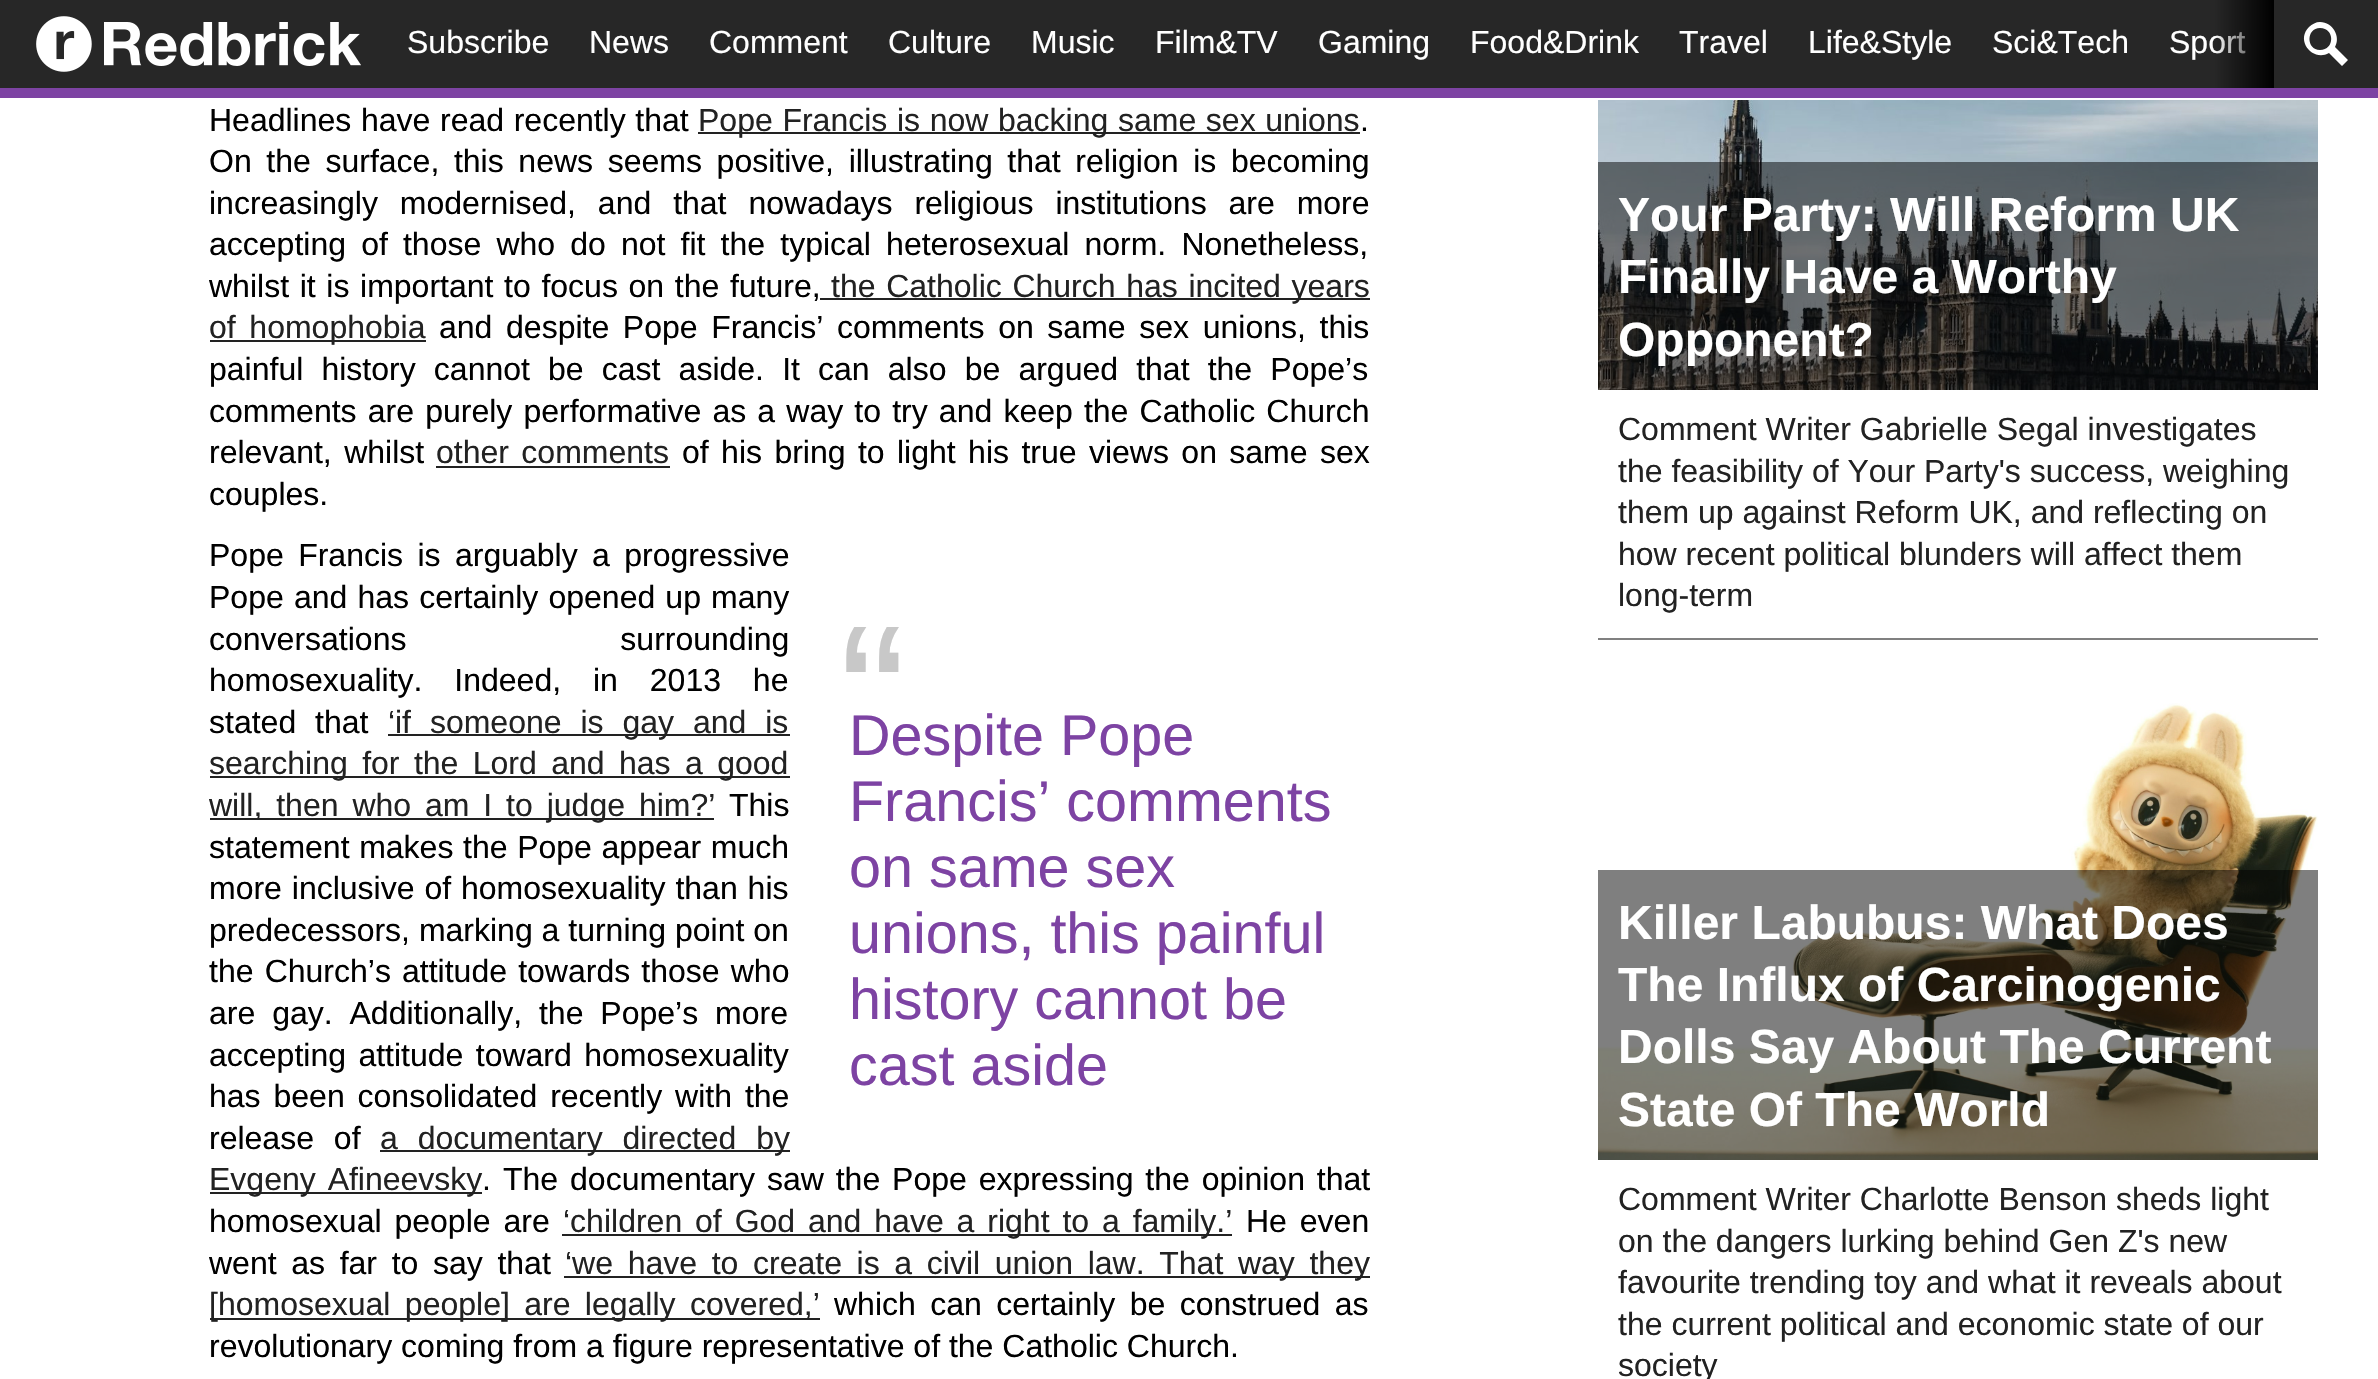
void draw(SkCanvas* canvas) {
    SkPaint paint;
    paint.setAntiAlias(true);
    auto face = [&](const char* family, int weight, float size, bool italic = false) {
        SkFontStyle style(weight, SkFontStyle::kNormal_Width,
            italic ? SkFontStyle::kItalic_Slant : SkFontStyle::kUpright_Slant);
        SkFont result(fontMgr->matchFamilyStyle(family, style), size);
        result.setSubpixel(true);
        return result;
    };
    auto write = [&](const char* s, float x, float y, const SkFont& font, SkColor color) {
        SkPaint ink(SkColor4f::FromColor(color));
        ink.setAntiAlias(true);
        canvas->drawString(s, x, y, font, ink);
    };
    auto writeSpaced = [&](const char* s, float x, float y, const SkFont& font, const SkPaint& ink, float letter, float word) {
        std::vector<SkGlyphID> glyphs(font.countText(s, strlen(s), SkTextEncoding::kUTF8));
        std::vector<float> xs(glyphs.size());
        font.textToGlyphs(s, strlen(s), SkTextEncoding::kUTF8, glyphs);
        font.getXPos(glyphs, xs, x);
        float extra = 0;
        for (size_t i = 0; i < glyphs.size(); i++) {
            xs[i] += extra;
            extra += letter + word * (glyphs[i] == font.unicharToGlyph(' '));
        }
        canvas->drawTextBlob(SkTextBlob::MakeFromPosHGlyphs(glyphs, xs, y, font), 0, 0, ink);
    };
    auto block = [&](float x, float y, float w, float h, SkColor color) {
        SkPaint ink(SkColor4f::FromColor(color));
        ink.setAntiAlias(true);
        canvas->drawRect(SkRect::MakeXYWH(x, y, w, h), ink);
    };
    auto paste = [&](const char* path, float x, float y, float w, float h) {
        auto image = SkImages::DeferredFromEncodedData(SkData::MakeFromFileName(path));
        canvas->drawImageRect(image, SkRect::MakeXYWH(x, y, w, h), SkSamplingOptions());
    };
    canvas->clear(SK_ColorWHITE);
    block(0, 0, 2378, 88, SkColorSetRGB(39, 39, 39));
    block(0, 88, 2378, 10, SkColorSetRGB(125, 67, 163));
    paste("pic1.png", 36, 16, 56, 56);
    paste("pic2.png", 104, 22, 257, 44);
    auto kFont1 = face("Liberation Sans", 400, 32);
    write("Sport", 2169, 53, kFont1, SK_ColorWHITE);
    {
        const SkColor colors[] = {SK_ColorBLACK, SkColorSetARGB(0, 0, 0, 0)};
        const float stops[] = {0, 1};
        const SkPoint ends[] = {{2274, 44}, {2214, 44}};
        paint.setShader(SkGradientShader::MakeLinear(ends, colors, stops, 2, SkTileMode::kClamp));
        paint.setAlpha(255);
    }
    canvas->drawRect(SkRect::MakeXYWH(2215, 0, 59, 88), paint);
    write("Subscribe", 407, 53, kFont1, SK_ColorWHITE);
    write("News", 589, 53, kFont1, SK_ColorWHITE);
    write("Comment", 709, 53, kFont1, SK_ColorWHITE);
    write("Culture", 888, 53, kFont1, SK_ColorWHITE);
    write("Music", 1031, 53, kFont1, SK_ColorWHITE);
    write("Film&TV", 1155, 53, kFont1, SK_ColorWHITE);
    write("Gaming", 1318, 53, kFont1, SK_ColorWHITE);
    write("Food&Drink", 1470, 53, kFont1, SK_ColorWHITE);
    write("Travel", 1679, 53, kFont1, SK_ColorWHITE);
    write("Life&Style", 1808, 53, kFont1, SK_ColorWHITE);
    write("Sci&Tech", 1992, 53, kFont1, SK_ColorWHITE);
    paint.setShader(nullptr);
    paint.setColor(SK_ColorWHITE);
    canvas->drawPath(SkPathBuilder().moveTo(2320, 22).cubicTo(2316, 22, 2312, 24, 2309, 27).cubicTo(2295, 41, 2313, 62, 2329, 53).lineTo(2342, 66).lineTo(2348, 60).lineTo(2335, 47).cubicTo(2341, 37, 2333, 22, 2320, 22).close().moveTo(2320, 28).cubicTo(2335, 28, 2335, 50, 2320, 50).cubicTo(2306, 50, 2306, 28, 2320, 28).close().detach(), paint);
    paint.setColor(SK_ColorBLACK);
    writeSpaced("Headlines have read recently that", 209, 131, kFont1, paint, 0, 0.75f);
    block(698, 132, 662, 2, SkColorSetRGB(34, 34, 34));
    paint.setColor(SkColorSetRGB(34, 34, 34));
    writeSpaced("Pope Francis is now backing same sex unions", 698, 131, kFont1, paint, 0, 0.75f);
    write(".", 1360, 131, kFont1, SK_ColorBLACK);
    paint.setColor(SK_ColorBLACK);
    writeSpaced("On the surface, this news seems positive, illustrating that religion is becoming", 209, 172, kFont1, paint, 0, 5.75f);
    writeSpaced("increasingly modernised, and that nowadays religious institutions are more", 209, 214, kFont1, paint, 0, 13);
    writeSpaced("accepting of those who do not fit the typical heterosexual norm. Nonetheless,", 209, 255, kFont1, paint, 0, 6.25f);
    writeSpaced("whilst it is important to focus on the future,", 209, 297, kFont1, paint, 0, 1.75f);
    block(820, 298, 550, 2, SkColorSetRGB(34, 34, 34));
    paint.setColor(SkColorSetRGB(34, 34, 34));
    writeSpaced("the Catholic Church has incited years", 831, 297, kFont1, paint, 0, 1.75f);
    block(210, 340, 216, 2, SkColorSetRGB(34, 34, 34));
    writeSpaced("of homophobia", 209, 338, kFont1, paint, 0, 4.75f);
    paint.setColor(SK_ColorBLACK);
    writeSpaced("and despite Pope Francis’ comments on same sex unions, this", 439, 338, kFont1, paint, 0, 4.75f);
    writeSpaced("painful history cannot be cast aside. It can also be argued that the Pope’s", 209, 380, kFont1, paint, 0, 9.25f);
    writeSpaced("comments are purely performative as a way to try and keep the Catholic Church", 209, 422, kFont1, paint, 0, 2.25f);
    writeSpaced("relevant, whilst", 209, 463, kFont1, paint, 0, 3.5f);
    paint.setColor(SkColorSetRGB(34, 34, 34));
    writeSpaced("other comments", 436, 463, kFont1, paint, 0, 3.5f);
    block(436, 466, 234, 2, SkColorSetRGB(34, 34, 34));
    paint.setColor(SK_ColorBLACK);
    writeSpaced("of his bring to light his true views on same sex", 682, 463, kFont1, paint, 0, 3.5f);
    write("couples.", 209, 505, kFont1, SK_ColorBLACK);
    writeSpaced("Pope Francis is arguably a progressive", 209, 566, kFont1, paint, 0, 5.5f);
    writeSpaced("Pope and has certainly opened up many", 209, 608, kFont1, paint, 0, 1.25f);
    writeSpaced("conversations surrounding", 209, 650, kFont1, paint, 0, 205);
    writeSpaced("homosexuality. Indeed, in 2013 he", 209, 691, kFont1, paint, 0, 23);
    writeSpaced("stated that", 209, 733, kFont1, paint, 0, 10);
    write("‘", 388, 733, kFont1, SkColorSetRGB(34, 34, 34));
    block(388, 734, 402, 2, SkColorSetRGB(34, 34, 34));
    paint.setColor(SkColorSetRGB(34, 34, 34));
    writeSpaced("if someone is gay and is", 395, 733, kFont1, paint, 0, 10);
    block(210, 776, 580, 2, SkColorSetRGB(34, 34, 34));
    writeSpaced("searching for the Lord and has a good", 209, 774, kFont1, paint, 0, 5.5f);
    block(210, 818, 504, 2, SkColorSetRGB(34, 34, 34));
    writeSpaced("will, then who am I to judge him?’", 209, 816, kFont1, paint, 0, 5);
    write("This", 729, 816, kFont1, SK_ColorBLACK);
    paint.setColor(SK_ColorBLACK);
    writeSpaced("statement makes the Pope appear much", 209, 858, kFont1, paint, 0, 0.75f);
    writeSpaced("more inclusive of homosexuality than his", 209, 899, kFont1, paint, 0, 1);
    write("predecessors, marking a turning point on", 209, 941, kFont1, SK_ColorBLACK);
    writeSpaced("the Church’s attitude towards those who", 209, 982, kFont1, paint, 0, 2.25f);
    writeSpaced("are gay. Additionally, the Pope’s more", 209, 1024, kFont1, paint, 0, 8);
    writeSpaced("accepting attitude toward homosexuality", 209, 1066, kFont1, paint, 0, 3.5f);
    writeSpaced("has been consolidated recently with the", 209, 1107, kFont1, paint, 0, 4);
    writeSpaced("release of", 209, 1149, kFont1, paint, 0, 11);
    block(380, 1150, 410, 2, SkColorSetRGB(34, 34, 34));
    paint.setColor(SkColorSetRGB(34, 34, 34));
    writeSpaced("a documentary directed by", 380, 1149, kFont1, paint, 0, 11);
    block(210, 1192, 272, 2, SkColorSetRGB(34, 34, 34));
    writeSpaced("Evgeny Afineevsky", 209, 1190, kFont1, paint, 0, 3);
    write(".", 482, 1190, kFont1, SK_ColorBLACK);
    paint.setColor(SK_ColorBLACK);
    writeSpaced("The documentary saw the Pope expressing the opinion that", 503, 1190, kFont1, paint, 0, 3);
    writeSpaced("homosexual people are", 209, 1232, kFont1, paint, 0, 4);
    block(562, 1234, 670, 2, SkColorSetRGB(34, 34, 34));
    paint.setColor(SkColorSetRGB(34, 34, 34));
    writeSpaced("‘children of God and have a right to a family.’", 563, 1232, kFont1, paint, 0, 4);
    paint.setColor(SK_ColorBLACK);
    writeSpaced("He even", 1246, 1232, kFont1, paint, 0, 4);
    writeSpaced("went as far to say that", 209, 1274, kFont1, paint, 0, 5.75f);
    block(564, 1276, 806, 2, SkColorSetRGB(34, 34, 34));
    paint.setColor(SkColorSetRGB(34, 34, 34));
    writeSpaced("‘we have to create is a civil union law. That way they", 565, 1274, kFont1, paint, 0, 5.75f);
    block(210, 1318, 610, 2, SkColorSetRGB(34, 34, 34));
    writeSpaced("[homosexual people] are legally covered,’", 209, 1315, kFont1, paint, 0, 5.5f);
    paint.setColor(SK_ColorBLACK);
    writeSpaced("which can certainly be construed as", 834, 1315, kFont1, paint, 0, 5.5f);
    write("revolutionary coming from a figure representative of the Catholic Church.", 209, 1357, kFont1, SK_ColorBLACK);
    auto kFont2 = face("Liberation Sans", 400, 202);
    write("“", 839, 766, kFont2, SkColorSetRGB(200, 200, 200));
    auto kFont3 = face("Liberation Sans", 400, 57.5f);
    write("Despite Pope", 849, 755, kFont3, SkColorSetRGB(125, 67, 163));
    write("Francis’ comments", 849, 821, kFont3, SkColorSetRGB(125, 67, 163));
    write("on same sex", 849, 887, kFont3, SkColorSetRGB(125, 67, 163));
    write("unions, this painful", 849, 953, kFont3, SkColorSetRGB(125, 67, 163));
    write("history cannot be", 849, 1019, kFont3, SkColorSetRGB(125, 67, 163));
    write("cast aside", 849, 1085, kFont3, SkColorSetRGB(125, 67, 163));
    block(1598, 638, 720, 2, SkColorSetRGB(128, 128, 128));
    paste("pic3.png", 1598, 100, 720, 290);
    block(1598, 162, 720, 228, SkColorSetARGB(128, 0, 0, 0));
    auto kFont4 = face("Liberation Sans", 700, 48);
    write("Your Party: Will Reform UK", 1618, 231, kFont4, SK_ColorWHITE);
    write("Finally Have a Worthy", 1618, 293, kFont4, SK_ColorWHITE);
    write("Opponent?", 1618, 356, kFont4, SK_ColorWHITE);
    write("Comment Writer Gabrielle Segal investigates", 1618, 440, kFont1, SkColorSetRGB(34, 34, 34));
    write("the feasibility of Your Party's success, weighing", 1618, 482, kFont1, SkColorSetRGB(34, 34, 34));
    write("them up against Reform UK, and reflecting on", 1618, 523, kFont1, SkColorSetRGB(34, 34, 34));
    write("how recent political blunders will affect them", 1618, 565, kFont1, SkColorSetRGB(34, 34, 34));
    write("long-term", 1618, 606, kFont1, SkColorSetRGB(34, 34, 34));
    paste("pic4.png", 1598, 703, 720, 457);
    block(1598, 870, 720, 290, SkColorSetARGB(128, 0, 0, 0));
    write("Killer Labubus: What Does", 1618, 939, kFont4, SK_ColorWHITE);
    write("The Influx of Carcinogenic", 1618, 1001, kFont4, SK_ColorWHITE);
    write("Dolls Say About The Current", 1618, 1063, kFont4, SK_ColorWHITE);
    write("State Of The World", 1618, 1126, kFont4, SK_ColorWHITE);
    write("Comment Writer Charlotte Benson sheds light", 1618, 1210, kFont1, SkColorSetRGB(34, 34, 34));
    write("on the dangers lurking behind Gen Z's new", 1618, 1252, kFont1, SkColorSetRGB(34, 34, 34));
    write("favourite trending toy and what it reveals about", 1618, 1293, kFont1, SkColorSetRGB(34, 34, 34));
    write("the current political and economic state of our", 1618, 1335, kFont1, SkColorSetRGB(34, 34, 34));
    write("society", 1618, 1376, kFont1, SkColorSetRGB(34, 34, 34));
}
